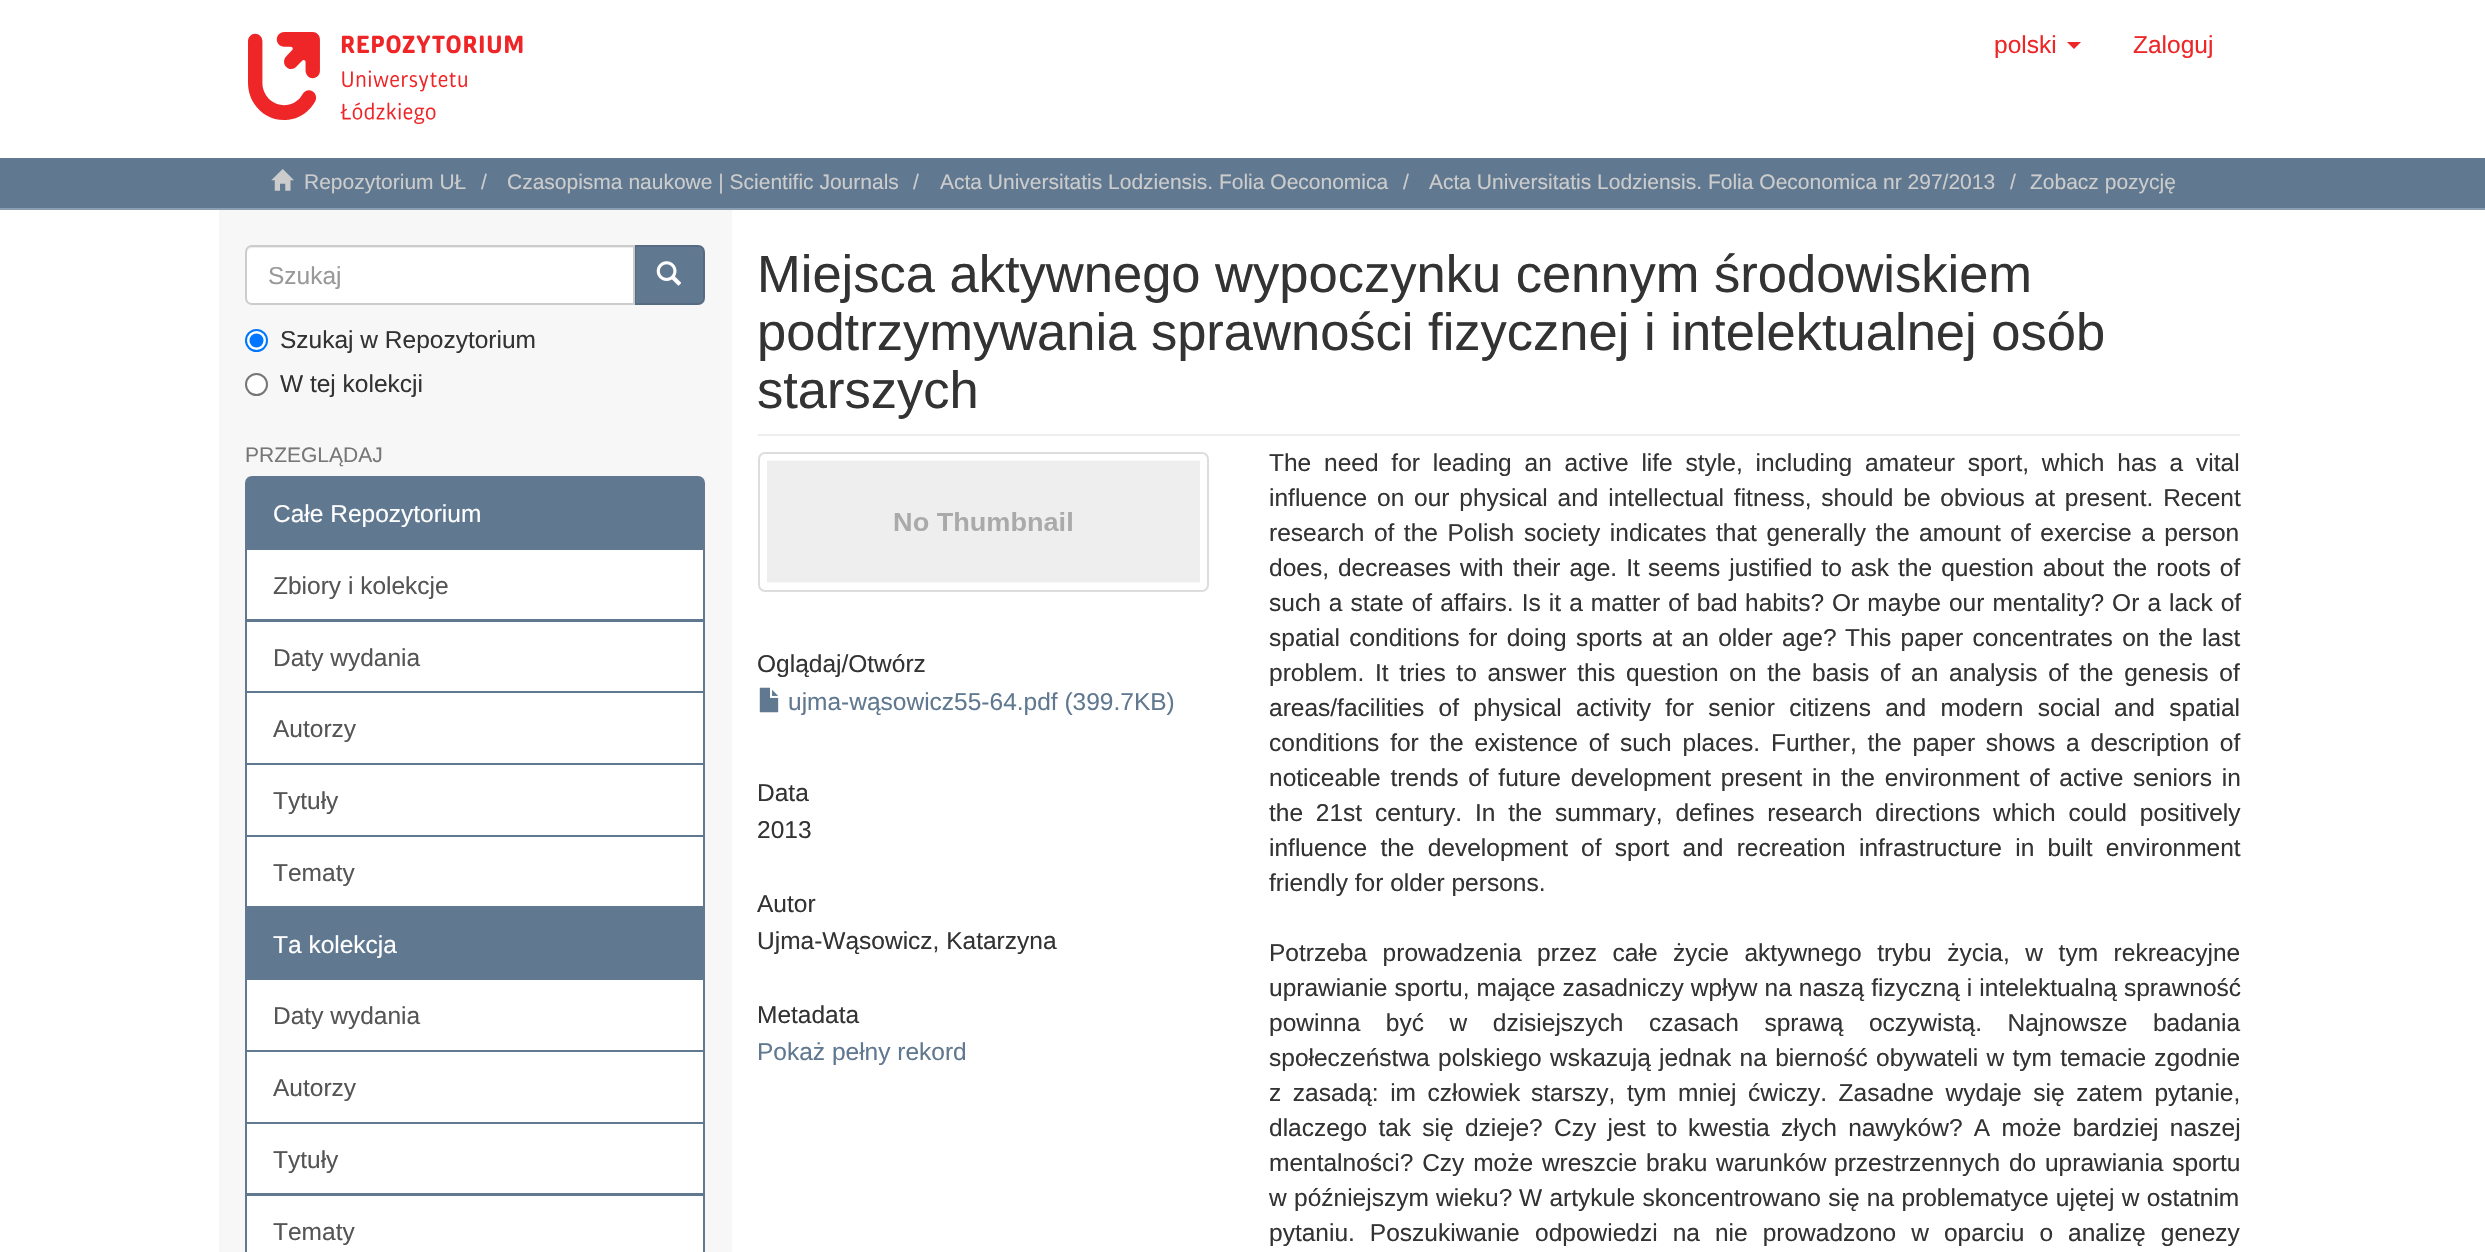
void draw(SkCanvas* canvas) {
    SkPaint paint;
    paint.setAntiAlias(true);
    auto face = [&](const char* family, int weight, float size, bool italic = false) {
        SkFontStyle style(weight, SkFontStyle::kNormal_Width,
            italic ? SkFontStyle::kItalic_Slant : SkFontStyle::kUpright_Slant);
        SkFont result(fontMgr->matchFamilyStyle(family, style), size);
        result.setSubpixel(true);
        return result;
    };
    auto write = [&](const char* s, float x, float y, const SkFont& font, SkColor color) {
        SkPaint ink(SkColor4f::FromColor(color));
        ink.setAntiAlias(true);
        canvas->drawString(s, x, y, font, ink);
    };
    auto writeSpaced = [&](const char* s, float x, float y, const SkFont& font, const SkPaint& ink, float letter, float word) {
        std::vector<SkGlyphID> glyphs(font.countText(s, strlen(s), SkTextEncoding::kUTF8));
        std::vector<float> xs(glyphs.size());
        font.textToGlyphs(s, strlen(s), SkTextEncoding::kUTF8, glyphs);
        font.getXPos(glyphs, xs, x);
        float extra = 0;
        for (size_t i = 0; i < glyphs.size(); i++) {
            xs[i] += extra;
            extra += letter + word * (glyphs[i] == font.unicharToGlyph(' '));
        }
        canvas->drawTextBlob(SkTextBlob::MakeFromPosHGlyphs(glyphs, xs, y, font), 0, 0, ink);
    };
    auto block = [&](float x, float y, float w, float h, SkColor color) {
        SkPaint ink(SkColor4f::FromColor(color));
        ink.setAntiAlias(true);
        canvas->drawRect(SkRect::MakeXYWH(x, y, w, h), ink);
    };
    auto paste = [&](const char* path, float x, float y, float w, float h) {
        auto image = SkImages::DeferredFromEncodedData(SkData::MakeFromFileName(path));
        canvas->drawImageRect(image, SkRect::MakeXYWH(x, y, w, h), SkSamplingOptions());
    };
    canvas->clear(SK_ColorWHITE);
    paste("pic1.png", 248, 32, 275, 92);
    auto kFont1 = face("Liberation Sans", 400, 24.5f);
    write("polski", 1994, 53, kFont1, SkColorSetRGB(238, 38, 40));
    paint.setColor(SkColorSetRGB(238, 38, 40));
    canvas->drawPath(SkPathBuilder().moveTo(2067, 42).lineTo(2081, 42).lineTo(2074, 49).close().detach(), paint);
    write("Zaloguj", 2133, 53, kFont1, SkColorSetRGB(238, 38, 40));
    block(0, 158, 2485, 50, SkColorSetRGB(96, 120, 144));
    block(0, 208, 2485, 2, SkColorSetRGB(139, 158, 178));
    paste("pic2.png", 271, 169, 23, 22);
    auto kFont2 = face("Liberation Sans", 400, 21);
    write("Repozytorium UŁ", 304, 189, kFont2, SkColorSetRGB(204, 204, 204));
    write("/", 481, 189, kFont2, SkColorSetRGB(204, 204, 204));
    write("Czasopisma naukowe | Scientific Journals", 507, 189, kFont2, SkColorSetRGB(204, 204, 204));
    write("/", 913, 189, kFont2, SkColorSetRGB(204, 204, 204));
    write("Acta Universitatis Lodziensis. Folia Oeconomica", 940, 189, kFont2, SkColorSetRGB(204, 204, 204));
    write("/", 1403, 189, kFont2, SkColorSetRGB(204, 204, 204));
    write("Acta Universitatis Lodziensis. Folia Oeconomica nr 297/2013", 1429, 189, kFont2, SkColorSetRGB(204, 204, 204));
    write("/", 2010, 189, kFont2, SkColorSetRGB(204, 204, 204));
    write("Zobacz pozycję", 2030, 189, kFont2, SkColorSetRGB(204, 204, 204));
    block(219, 210, 513, 1042, SkColorSetRGB(247, 247, 247));
    paint.setColor(SkColorSetRGB(96, 120, 144));
    canvas->drawPath(SkPathBuilder().moveTo(635, 246).lineTo(698, 246).cubicTo(701.5f, 246, 704, 248.5f, 704, 252).lineTo(704, 298).cubicTo(704, 301.5f, 701.5f, 304, 698, 304).lineTo(635, 304).close().detach(), paint);
    paint.setStyle(SkPaint::kStroke_Style);
    paint.setStrokeWidth(2);
    paint.setColor(SkColorSetRGB(86, 107, 129));
    canvas->drawPath(SkPathBuilder().moveTo(635, 246).lineTo(698, 246).cubicTo(701.5f, 246, 704, 248.5f, 704, 252).lineTo(704, 298).cubicTo(704, 301.5f, 701.5f, 304, 698, 304).lineTo(635, 304).close().detach(), paint);
    paint.setStyle(SkPaint::kFill_Style);
    paint.setColor(SK_ColorWHITE);
    canvas->drawPath(SkPathBuilder().moveTo(252, 245).lineTo(635, 245).lineTo(635, 305).lineTo(252, 305).cubicTo(248, 305, 245, 302, 245, 298).lineTo(245, 252).cubicTo(245, 248, 248, 245, 252, 245).close().detach(), paint);
    paint.setColor(SkColorSetRGB(236, 236, 236));
    canvas->drawPath(SkPathBuilder().moveTo(252, 248).lineTo(634, 248).lineTo(634, 247).lineTo(252, 247).cubicTo(249, 247, 247, 249, 247, 252).lineTo(247, 254).cubicTo(247, 251, 249, 248, 252, 248).close().detach(), paint);
    paint.setStyle(SkPaint::kStroke_Style);
    paint.setColor(SkColorSetRGB(204, 204, 204));
    canvas->drawPath(SkPathBuilder().moveTo(252, 246).lineTo(634, 246).lineTo(634, 304).lineTo(252, 304).cubicTo(248.5f, 304, 246, 301.5f, 246, 298).lineTo(246, 252).cubicTo(246, 248.5f, 248.5f, 246, 252, 246).close().detach(), paint);
    write("Szukaj", 268, 284, kFont1, SkColorSetRGB(153, 153, 153));
    paste("pic3.png", 656, 261, 26, 25);
    paint.setStyle(SkPaint::kFill_Style);
    paint.setColor(SK_ColorWHITE);
    canvas->drawCircle(256.5f, 340.5f, 10.5f, paint);
    paint.setStyle(SkPaint::kStroke_Style);
    paint.setColor(SkColorSetRGB(0, 117, 255));
    canvas->drawCircle(256.5f, 340.5f, 10.5f, paint);
    paint.setStyle(SkPaint::kFill_Style);
    canvas->drawCircle(256.5f, 340.5f, 7, paint);
    write("Szukaj w Repozytorium", 280, 348, kFont1, SkColorSetRGB(51, 51, 51));
    paint.setColor(SK_ColorWHITE);
    canvas->drawCircle(256.5f, 384.5f, 10.5f, paint);
    paint.setStyle(SkPaint::kStroke_Style);
    paint.setColor(SkColorSetRGB(118, 118, 118));
    canvas->drawCircle(256.5f, 384.5f, 10.5f, paint);
    write("W tej kolekcji", 280, 392, kFont1, SkColorSetRGB(51, 51, 51));
    write("PRZEGLĄDAJ", 245, 462, kFont2, SkColorSetRGB(119, 119, 119));
    paint.setStyle(SkPaint::kFill_Style);
    paint.setColor(SK_ColorWHITE);
    canvas->drawRect(SkRect::MakeXYWH(246, 549, 458, 71), paint);
    paint.setStyle(SkPaint::kStroke_Style);
    paint.setColor(SkColorSetRGB(96, 120, 144));
    canvas->drawRect(SkRect::MakeXYWH(246, 549, 458, 71), paint);
    paint.setStyle(SkPaint::kFill_Style);
    canvas->drawPath(SkPathBuilder().moveTo(252, 477).lineTo(698, 477).cubicTo(701.5f, 477, 704, 479.5f, 704, 483).lineTo(704, 549).lineTo(246, 549).lineTo(246, 483).cubicTo(246, 479.5f, 248.5f, 477, 252, 477).close().detach(), paint);
    paint.setStyle(SkPaint::kStroke_Style);
    canvas->drawPath(SkPathBuilder().moveTo(252, 477).lineTo(698, 477).cubicTo(701.5f, 477, 704, 479.5f, 704, 483).lineTo(704, 549).lineTo(246, 549).lineTo(246, 483).cubicTo(246, 479.5f, 248.5f, 477, 252, 477).close().detach(), paint);
    write("Całe Repozytorium", 273, 522, kFont1, SK_ColorWHITE);
    write("Zbiory i kolekcje", 273, 594, kFont1, SkColorSetRGB(85, 85, 85));
    paint.setStyle(SkPaint::kFill_Style);
    paint.setColor(SK_ColorWHITE);
    canvas->drawRect(SkRect::MakeXYWH(246, 621, 458, 71), paint);
    paint.setStyle(SkPaint::kStroke_Style);
    paint.setColor(SkColorSetRGB(96, 120, 144));
    canvas->drawRect(SkRect::MakeXYWH(246, 621, 458, 71), paint);
    write("Daty wydania", 273, 666, kFont1, SkColorSetRGB(85, 85, 85));
    paint.setStyle(SkPaint::kFill_Style);
    paint.setColor(SK_ColorWHITE);
    canvas->drawRect(SkRect::MakeXYWH(246, 692, 458, 72), paint);
    paint.setStyle(SkPaint::kStroke_Style);
    paint.setColor(SkColorSetRGB(96, 120, 144));
    canvas->drawRect(SkRect::MakeXYWH(246, 692, 458, 72), paint);
    write("Autorzy", 273, 737, kFont1, SkColorSetRGB(85, 85, 85));
    paint.setStyle(SkPaint::kFill_Style);
    paint.setColor(SK_ColorWHITE);
    canvas->drawRect(SkRect::MakeXYWH(246, 764, 458, 72), paint);
    paint.setStyle(SkPaint::kStroke_Style);
    paint.setColor(SkColorSetRGB(96, 120, 144));
    canvas->drawRect(SkRect::MakeXYWH(246, 764, 458, 72), paint);
    write("Tytuły", 273, 809, kFont1, SkColorSetRGB(85, 85, 85));
    paint.setStyle(SkPaint::kFill_Style);
    paint.setColor(SK_ColorWHITE);
    canvas->drawRect(SkRect::MakeXYWH(246, 836, 458, 71), paint);
    paint.setStyle(SkPaint::kStroke_Style);
    paint.setColor(SkColorSetRGB(96, 120, 144));
    canvas->drawRect(SkRect::MakeXYWH(246, 836, 458, 71), paint);
    write("Tematy", 273, 881, kFont1, SkColorSetRGB(85, 85, 85));
    block(245, 908, 460, 70, SkColorSetRGB(96, 120, 144));
    write("Ta kolekcja", 273, 953, kFont1, SK_ColorWHITE);
    paint.setStyle(SkPaint::kFill_Style);
    paint.setColor(SK_ColorWHITE);
    canvas->drawRect(SkRect::MakeXYWH(246, 979, 458, 72), paint);
    paint.setStyle(SkPaint::kStroke_Style);
    paint.setColor(SkColorSetRGB(96, 120, 144));
    canvas->drawRect(SkRect::MakeXYWH(246, 979, 458, 72), paint);
    write("Daty wydania", 273, 1024, kFont1, SkColorSetRGB(85, 85, 85));
    paint.setStyle(SkPaint::kFill_Style);
    paint.setColor(SK_ColorWHITE);
    canvas->drawRect(SkRect::MakeXYWH(246, 1051, 458, 72), paint);
    paint.setStyle(SkPaint::kStroke_Style);
    paint.setColor(SkColorSetRGB(96, 120, 144));
    canvas->drawRect(SkRect::MakeXYWH(246, 1051, 458, 72), paint);
    write("Autorzy", 273, 1096, kFont1, SkColorSetRGB(85, 85, 85));
    paint.setStyle(SkPaint::kFill_Style);
    paint.setColor(SK_ColorWHITE);
    canvas->drawRect(SkRect::MakeXYWH(246, 1123, 458, 71), paint);
    paint.setStyle(SkPaint::kStroke_Style);
    paint.setColor(SkColorSetRGB(96, 120, 144));
    canvas->drawRect(SkRect::MakeXYWH(246, 1123, 458, 71), paint);
    write("Tytuły", 273, 1168, kFont1, SkColorSetRGB(85, 85, 85));
    paint.setStyle(SkPaint::kFill_Style);
    paint.setColor(SK_ColorWHITE);
    canvas->drawRect(SkRect::MakeXYWH(246, 1195, 458, 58), paint);
    paint.setStyle(SkPaint::kStroke_Style);
    paint.setColor(SkColorSetRGB(96, 120, 144));
    canvas->drawRect(SkRect::MakeXYWH(246, 1195, 458, 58), paint);
    write("Tematy", 273, 1240, kFont1, SkColorSetRGB(85, 85, 85));
    block(758, 434, 1482, 2, SkColorSetRGB(238, 238, 238));
    auto kFont3 = face("Liberation Sans", 400, 52.5f);
    write("Miejsca aktywnego wypoczynku cennym środowiskiem", 757, 292, kFont3, SkColorSetRGB(51, 51, 51));
    write("podtrzymywania sprawności fizycznej i intelektualnej osób", 757, 350, kFont3, SkColorSetRGB(51, 51, 51));
    write("starszych", 757, 408, kFont3, SkColorSetRGB(51, 51, 51));
    paint.setColor(SkColorSetRGB(221, 221, 221));
    canvas->drawRoundRect(SkRect::MakeXYWH(759, 453, 449, 138), 6, 6, paint);
    paste("pic4.png", 767, 460, 433, 123);
    write("Oglądaj/Otwórz", 757, 672, kFont1, SkColorSetRGB(51, 51, 51));
    paste("pic5.png", 759, 687, 20, 26);
    write("ujma-wąsowicz55-64.pdf (399.7KB)", 788, 710, kFont1, SkColorSetRGB(96, 120, 144));
    write("Data", 757, 801, kFont1, SkColorSetRGB(51, 51, 51));
    write("2013", 757, 838, kFont1, SkColorSetRGB(51, 51, 51));
    write("Autor", 757, 912, kFont1, SkColorSetRGB(51, 51, 51));
    write("Ujma-Wąsowicz, Katarzyna", 757, 949, kFont1, SkColorSetRGB(51, 51, 51));
    write("Metadata", 757, 1023, kFont1, SkColorSetRGB(51, 51, 51));
    write("Pokaż pełny rekord", 757, 1060, kFont1, SkColorSetRGB(96, 120, 144));
    paint.setStyle(SkPaint::kFill_Style);
    paint.setColor(SkColorSetRGB(51, 51, 51));
    writeSpaced("The need for leading an active life style, including amateur sport, which has a vital", 1269, 471, kFont1, paint, 0, 6);
    write("influence", 1269, 506, kFont1, SkColorSetRGB(51, 51, 51));
    writeSpaced("on our physical and intellectual fitness, should be obvious at present. Recent", 1377, 506, kFont1, paint, 0, 3);
    writeSpaced("research of the Polish", 1269, 541, kFont1, paint, 0, 2.75f);
    writeSpaced("society indicates that generally the amount of exercise a person", 1524, 541, kFont1, paint, 0, 2.75f);
    writeSpaced("does, decreases with their age. It", 1269, 576, kFont1, paint, 0, 2.25f);
    writeSpaced("seems justified to ask the question about the roots of", 1648, 576, kFont1, paint, 0, 2.25f);
    writeSpaced("such a state of affairs. Is it a matter of bad", 1269, 611, kFont1, paint, 0, 1.25f);
    writeSpaced("habits? Or maybe our mentality? Or a lack of", 1745, 611, kFont1, paint, 0, 1.25f);
    writeSpaced("spatial conditions for doing sports at an older age?", 1269, 646, kFont1, paint, 0, 2.5f);
    writeSpaced("This paper concentrates on the last", 1845, 646, kFont1, paint, 0, 2.5f);
    writeSpaced("problem. It tries to answer this question on the basis of an", 1269, 681, kFont1, paint, 0, 3.9f);
    writeSpaced("analysis of the genesis of", 1949, 681, kFont1, paint, 0, 3.9f);
    writeSpaced("areas/facilities of physical activity for senior citizens and modern social", 1269, 716, kFont1, paint, 0, 7.5f);
    writeSpaced("and spatial", 2114, 716, kFont1, paint, 0, 7.5f);
    writeSpaced("conditions for the existence of such places. Further, the paper shows a description of", 1269, 751, kFont1, paint, 0, 4);
    writeSpaced("noticeable trends of future development present in the environment of active seniors in", 1269, 786, kFont1, paint, 0, 2.9f);
    writeSpaced("the 21st century. In the summary, defines research directions which could positively", 1269, 821, kFont1, paint, 0, 6);
    writeSpaced("influence the development", 1269, 856, kFont1, paint, 0, 6.5f);
    writeSpaced("of sport and recreation infrastructure in built environment", 1581, 856, kFont1, paint, 0, 6.5f);
    write("friendly for older persons.", 1269, 891, kFont1, SkColorSetRGB(51, 51, 51));
    writeSpaced("Potrzeba prowadzenia przez całe życie aktywnego trybu życia, w tym rekreacyjne", 1269, 961, kFont1, paint, 0, 8.75f);
    writeSpaced("uprawianie sportu, mające zasadniczy wpływ na naszą fizyczną i intelektualną sprawność", 1269, 996, kFont1, paint, 0, 0.25f);
    writeSpaced("powinna być w dzisiejszych czasach sprawą oczywistą. Najnowsze badania", 1269, 1031, kFont1, paint, 0, 18.75f);
    writeSpaced("społeczeństwa polskiego", 1269, 1066, kFont1, paint, 0, 1.5f);
    writeSpaced("wskazują jednak na bierność obywateli w tym temacie zgodnie", 1550, 1066, kFont1, paint, 0, 1.5f);
    writeSpaced("z zasadą: im człowiek", 1269, 1101, kFont1, paint, 0, 4.75f);
    writeSpaced("starszy, tym mniej ćwiczy. Zasadne wydaje się zatem pytanie,", 1531, 1101, kFont1, paint, 0, 4.75f);
    writeSpaced("dlaczego tak się dzieje? Czy jest to", 1269, 1136, kFont1, paint, 0, 4.5f);
    writeSpaced("kwestia złych nawyków? A może bardziej naszej", 1688, 1136, kFont1, paint, 0, 4.5f);
    writeSpaced("mentalności? Czy może wreszcie braku warunków", 1269, 1171, kFont1, paint, 0, 2);
    writeSpaced("przestrzennych do uprawiania sportu", 1834, 1171, kFont1, paint, 0, 2);
    writeSpaced("w późniejszym wieku?", 1269, 1206, kFont1, paint, 0, 0.5f);
    writeSpaced("W artykule skoncentrowano się na problematyce ujętej w ostatnim", 1519, 1206, kFont1, paint, 0, 0.5f);
    writeSpaced("pytaniu. Poszukiwanie", 1269, 1241, kFont1, paint, 0, 8.25f);
    writeSpaced("odpowiedzi na nie prowadzono w oparciu o analizę genezy", 1535, 1241, kFont1, paint, 0, 8.25f);
}
